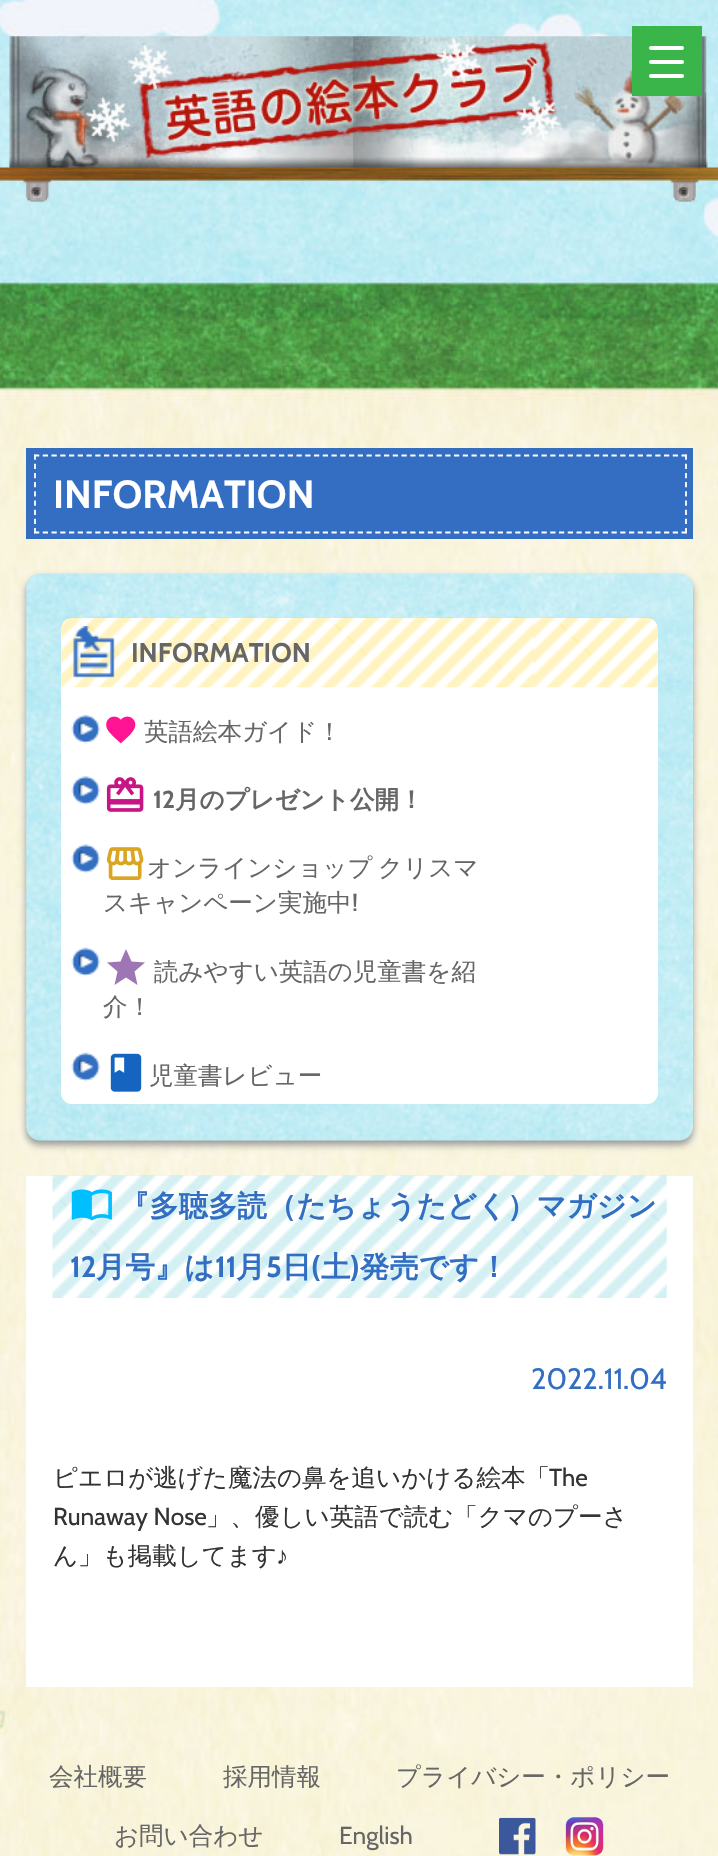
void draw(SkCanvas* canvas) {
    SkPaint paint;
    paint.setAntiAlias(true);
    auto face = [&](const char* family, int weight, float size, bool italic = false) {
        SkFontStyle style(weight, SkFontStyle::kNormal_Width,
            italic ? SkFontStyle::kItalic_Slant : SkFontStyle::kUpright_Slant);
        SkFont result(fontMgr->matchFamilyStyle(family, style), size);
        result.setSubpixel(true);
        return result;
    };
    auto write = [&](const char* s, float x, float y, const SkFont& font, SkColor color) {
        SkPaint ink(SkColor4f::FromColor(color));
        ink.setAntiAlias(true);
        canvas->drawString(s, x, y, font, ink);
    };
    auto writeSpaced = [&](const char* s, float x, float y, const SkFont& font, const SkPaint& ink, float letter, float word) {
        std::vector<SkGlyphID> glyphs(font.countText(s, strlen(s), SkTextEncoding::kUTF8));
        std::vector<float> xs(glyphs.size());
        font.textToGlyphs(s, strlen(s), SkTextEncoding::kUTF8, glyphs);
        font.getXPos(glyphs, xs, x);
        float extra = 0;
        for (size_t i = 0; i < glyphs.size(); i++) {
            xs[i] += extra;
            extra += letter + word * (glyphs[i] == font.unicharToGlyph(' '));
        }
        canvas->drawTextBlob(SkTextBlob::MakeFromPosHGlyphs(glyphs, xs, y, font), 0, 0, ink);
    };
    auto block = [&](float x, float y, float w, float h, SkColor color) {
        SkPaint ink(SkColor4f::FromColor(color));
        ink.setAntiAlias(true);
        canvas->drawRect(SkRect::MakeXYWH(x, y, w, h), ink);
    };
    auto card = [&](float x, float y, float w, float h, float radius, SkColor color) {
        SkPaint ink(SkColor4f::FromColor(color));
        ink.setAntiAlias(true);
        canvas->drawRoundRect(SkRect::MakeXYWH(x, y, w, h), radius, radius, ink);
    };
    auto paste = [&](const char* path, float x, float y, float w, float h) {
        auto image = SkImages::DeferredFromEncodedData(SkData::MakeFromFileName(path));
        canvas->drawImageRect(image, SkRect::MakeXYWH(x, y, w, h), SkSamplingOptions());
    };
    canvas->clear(SK_ColorWHITE);
    paste("pic1.png", 0, 0, 718, 1856);
    paste("pic2.png", 0, 36, 718, 167);
    block(632, 26, 70, 70, SkColorSetRGB(57, 181, 74));
    card(649, 60, 35, 4, 2, SK_ColorWHITE);
    card(649, 46, 35, 4, 2, SK_ColorWHITE);
    card(649, 74, 35, 4, 2, SK_ColorWHITE);
    block(26, 448, 667, 91, SkColorSetRGB(51, 110, 194));
    paint.setStyle(SkPaint::kStroke_Style);
    paint.setStrokeWidth(1.8f);
    paint.setColor(SK_ColorWHITE);
    paint.setPathEffect(SkDashPathEffect::Make({{5.25f, 3.5f}}, 0));
    canvas->drawPath(SkPathBuilder().moveTo(34, 455.5f).lineTo(687, 455.5f).detach(), paint);
    paint.setPathEffect(nullptr);
    paint.setPathEffect(SkDashPathEffect::Make({{5.25f, 3.94f}}, 0));
    canvas->drawPath(SkPathBuilder().moveTo(686, 454.5f).lineTo(686, 533.5f).detach(), paint);
    paint.setPathEffect(nullptr);
    paint.setPathEffect(SkDashPathEffect::Make({{5.25f, 3.5f}}, 0));
    canvas->drawPath(SkPathBuilder().moveTo(34, 532.5f).lineTo(687, 532.5f).detach(), paint);
    paint.setPathEffect(nullptr);
    paint.setPathEffect(SkDashPathEffect::Make({{5.25f, 3.94f}}, 0));
    canvas->drawPath(SkPathBuilder().moveTo(35, 454.5f).lineTo(35, 533.5f).detach(), paint);
    paint.setPathEffect(nullptr);
    auto kFont1 = face("Cabin", 700, 39.25f);
    write("INFORMATION", 53, 508, kFont1, SK_ColorWHITE);
    paint.setStyle(SkPaint::kFill_Style);
    paint.setColor(SkColorSetRGB(153, 153, 153));
    paint.setMaskFilter(SkMaskFilter::MakeBlur(kNormal_SkBlurStyle, 3.5f));
    canvas->drawRoundRect(SkRect::MakeXYWH(26, 578, 667, 567), 14, 14, paint);
    paint.setMaskFilter(nullptr);
    paste("pic3.png", 26, 573, 667, 568);
    card(61, 618, 597, 486, 11, SK_ColorWHITE);
    paste("pic4.png", 61, 617, 597, 71);
    paste("pic5.png", 73, 626, 42, 52);
    auto kFont2 = face("Cabin", 700, 27);
    write("INFORMATION", 131, 662, kFont2, SkColorSetRGB(102, 102, 102));
    paste("pic6.png", 71, 714, 30, 30);
    paste("pic7.png", 106, 716, 30, 28);
    auto kFont3 = face("WenQuanYi Zen Hei", 500, 24.5f);
    write("英語絵本ガイド！", 144, 740, kFont3, SkColorSetRGB(102, 102, 102));
    paste("pic8.png", 71, 776, 30, 29);
    paste("pic9.png", 106, 777, 38, 35);
    auto kFont4 = face("Cabin", 700, 24.5f);
    write("12", 153, 808, kFont4, SkColorSetRGB(102, 102, 102));
    auto kFont5 = face("WenQuanYi Zen Hei", 700, 24.5f);
    write("月のプレゼント公開！", 175, 808, kFont5, SkColorSetRGB(102, 102, 102));
    paste("pic10.png", 71, 844, 30, 29);
    paste("pic11.png", 106, 847, 38, 33);
    paint.setColor(SkColorSetRGB(102, 102, 102));
    writeSpaced("オンラインショップ クリスマ", 147, 876, kFont3, paint, 0, -2);
    write("スキャンペーン実施中", 103, 911, kFont3, SkColorSetRGB(102, 102, 102));
    auto kFont6 = face("Cabin", 400, 24.5f);
    write("!", 352, 911, kFont6, SkColorSetRGB(102, 102, 102));
    paste("pic12.png", 71, 947, 30, 30);
    paint.setColor(SkColorSetRGB(158, 118, 180));
    canvas->drawPath(SkPathBuilder().moveTo(126, 977.5f).lineTo(114.5f, 985).lineTo(117.5f, 971.5f).lineTo(107, 962.5f).lineTo(120.5f, 961.5f).lineTo(126, 949).lineTo(131.5f, 961.5f).lineTo(145, 962.5f).lineTo(134.5f, 971.5f).lineTo(137.5f, 985).close().detach(), paint);
    write("読みやすい英語の児童書を紹", 154, 980, kFont3, SkColorSetRGB(102, 102, 102));
    write("介！", 103, 1015, kFont3, SkColorSetRGB(102, 102, 102));
    paste("pic12.png", 71, 1052, 30, 30);
    paste("pic13.png", 110, 1053, 32, 39);
    write("児童書レビュー", 149, 1084, kFont3, SkColorSetRGB(102, 102, 102));
    block(26, 1176, 667, 511, SK_ColorWHITE);
    paste("pic14.png", 52, 1175, 615, 123);
    paste("pic15.png", 71, 1189, 41, 32);
    auto kFont7 = face("WenQuanYi Zen Hei", 700, 29.4f);
    write("『多聴多読（たちょうたどく）マガジン", 120, 1216, kFont7, SkColorSetRGB(50, 110, 194));
    auto kFont8 = face("Cabin", 700, 29.4f);
    write("12", 70, 1277, kFont8, SkColorSetRGB(50, 110, 194));
    write("月号』は", 96, 1277, kFont7, SkColorSetRGB(50, 110, 194));
    write("11", 215, 1277, kFont8, SkColorSetRGB(50, 110, 194));
    write("月", 236, 1277, kFont7, SkColorSetRGB(50, 110, 194));
    write("5", 266, 1277, kFont8, SkColorSetRGB(50, 110, 194));
    write("日", 282, 1277, kFont7, SkColorSetRGB(50, 110, 194));
    write("(", 311, 1277, kFont8, SkColorSetRGB(50, 110, 194));
    write("土", 321, 1277, kFont7, SkColorSetRGB(50, 110, 194));
    write(")", 350, 1277, kFont8, SkColorSetRGB(50, 110, 194));
    write("発売です！", 360, 1277, kFont7, SkColorSetRGB(50, 110, 194));
    auto kFont9 = face("Cabin", 400, 29.4f);
    write("2022.11.04", 531, 1389, kFont9, SkColorSetRGB(50, 110, 194));
    write("ピエロが逃げた魔法の鼻を追いかける絵本「", 53, 1486, kFont3, SkColorSetRGB(51, 51, 51));
    write("The", 549, 1486, kFont6, SkColorSetRGB(51, 51, 51));
    write("Runaway Nose", 53, 1525, kFont6, SkColorSetRGB(51, 51, 51));
    write("」、優しい英語で読む「クマのプーさ", 206, 1525, kFont3, SkColorSetRGB(51, 51, 51));
    write("ん」も掲載してます", 53, 1564, kFont3, SkColorSetRGB(51, 51, 51));
    auto kFont10 = face("Liberation Sans", 400, 24.5f);
    write("♪", 276, 1564, kFont10, SkColorSetRGB(51, 51, 51));
    write("会社概要", 49, 1785, kFont3, SkColorSetRGB(102, 102, 102));
    write("採用情報", 223, 1785, kFont3, SkColorSetRGB(102, 102, 102));
    write("プライバシー・ポリシー", 396, 1785, kFont3, SkColorSetRGB(102, 102, 102));
    write("お問い合わせ", 114, 1844, kFont3, SkColorSetRGB(102, 102, 102));
    write("English", 339, 1844, kFont6, SkColorSetRGB(102, 102, 102));
    paste("pic16.png", 499, 1817, 37, 38);
    paste("pic17.png", 565, 1817, 39, 39);
}
